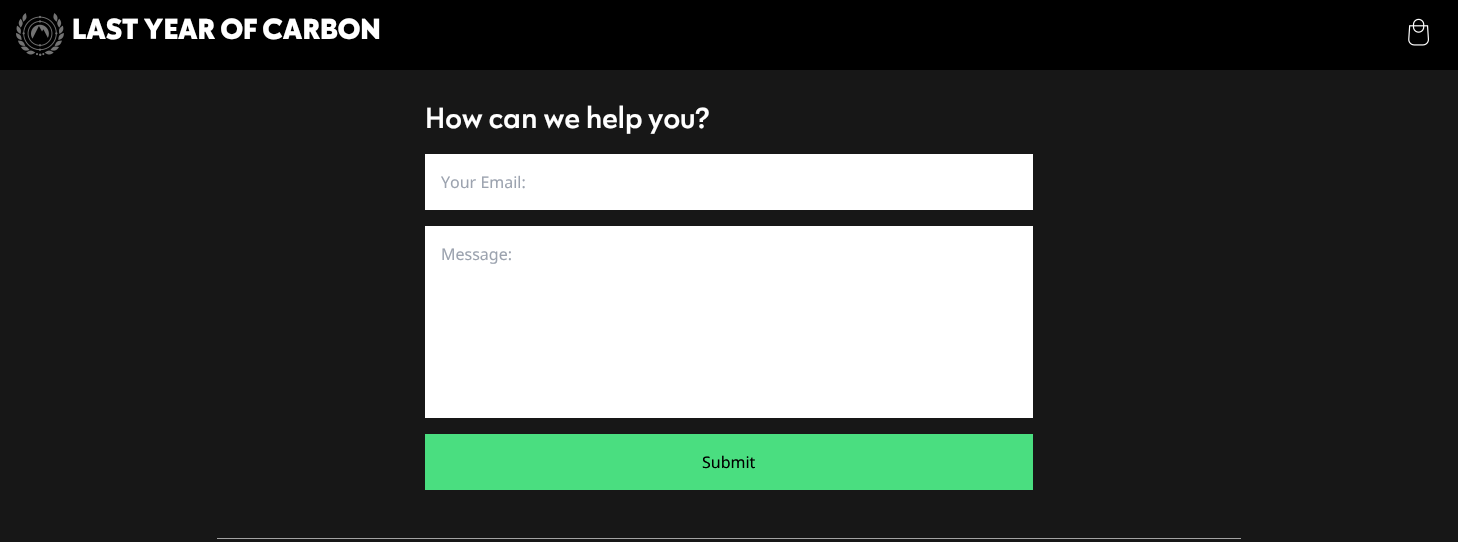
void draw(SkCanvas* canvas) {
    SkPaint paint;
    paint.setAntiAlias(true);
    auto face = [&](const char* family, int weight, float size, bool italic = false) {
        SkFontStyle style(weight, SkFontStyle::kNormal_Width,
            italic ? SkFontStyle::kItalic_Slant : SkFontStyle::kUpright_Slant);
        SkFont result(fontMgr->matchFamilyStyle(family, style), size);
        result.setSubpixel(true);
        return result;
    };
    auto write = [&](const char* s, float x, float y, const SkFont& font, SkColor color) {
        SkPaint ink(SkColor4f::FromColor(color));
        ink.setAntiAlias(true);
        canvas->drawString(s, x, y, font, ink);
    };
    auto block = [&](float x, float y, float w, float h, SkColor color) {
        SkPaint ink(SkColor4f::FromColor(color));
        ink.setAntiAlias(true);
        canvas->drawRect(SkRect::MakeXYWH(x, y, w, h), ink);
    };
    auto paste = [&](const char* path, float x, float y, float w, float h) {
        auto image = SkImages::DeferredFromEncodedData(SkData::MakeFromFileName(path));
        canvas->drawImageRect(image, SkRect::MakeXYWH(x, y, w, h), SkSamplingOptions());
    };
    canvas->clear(SkColorSetRGB(23, 23, 23));
    block(0, 0, 1458, 70, SK_ColorBLACK);
    paste("pic1.png", 16, 13, 48, 43);
    auto kFont1 = face("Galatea", 800, 30);
    write("LAST YEAR OF CARBON", 72, 39, kFont1, SK_ColorWHITE);
    paste("pic2.png", 1408, 18, 21, 28);
    auto kFont2 = face("Galatea", 500, 30);
    write("How can we help you?", 425, 128, kFont2, SK_ColorWHITE);
    block(425, 154, 608, 56, SK_ColorWHITE);
    auto kFont3 = face("Noto Sans", 400, 16);
    write("Your Email:", 441, 188, kFont3, SkColorSetRGB(156, 163, 175));
    block(425, 226, 608, 192, SK_ColorWHITE);
    write("Message:", 441, 260, kFont3, SkColorSetRGB(156, 163, 175));
    block(425, 434, 608, 56, SkColorSetRGB(74, 222, 128));
    write("Submit", 702, 468, kFont3, SK_ColorBLACK);
    block(217, 538, 1024, 1, SkColorSetRGB(163, 163, 163));
}
